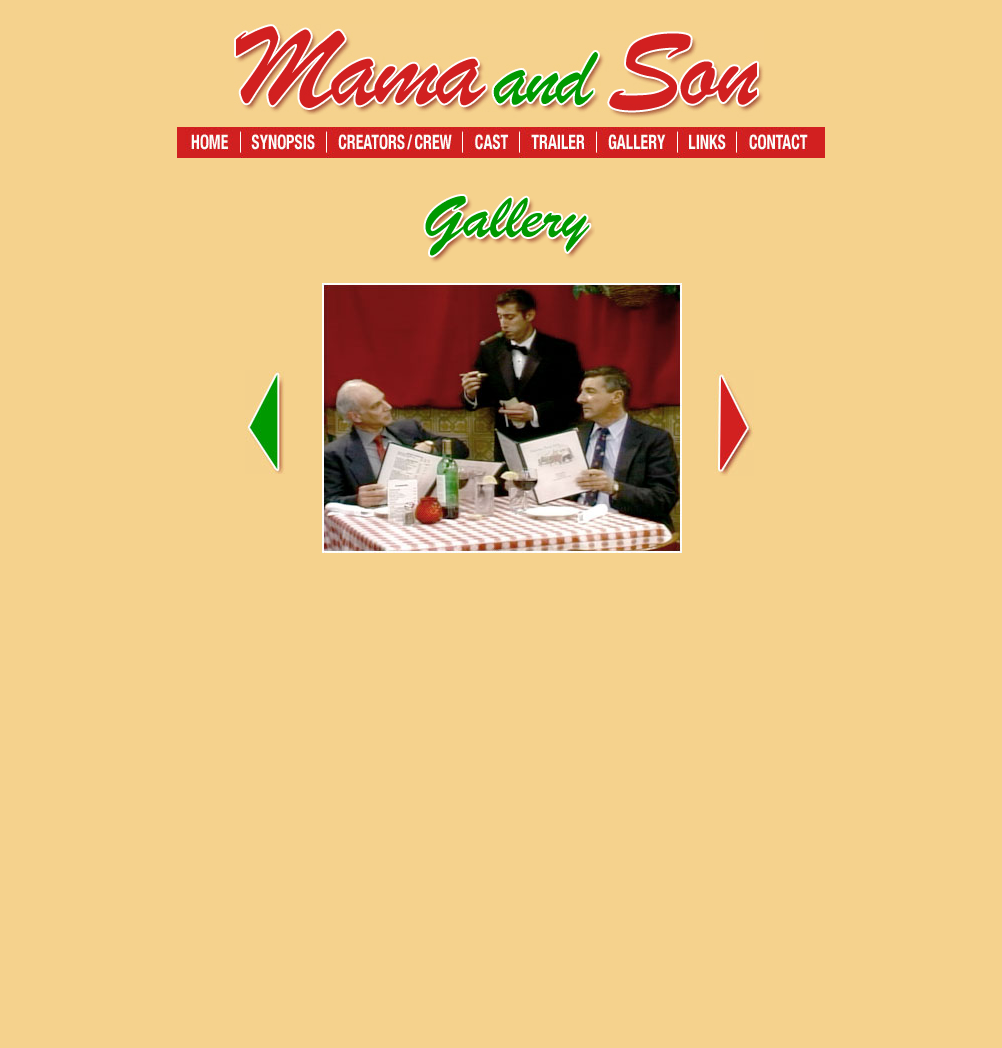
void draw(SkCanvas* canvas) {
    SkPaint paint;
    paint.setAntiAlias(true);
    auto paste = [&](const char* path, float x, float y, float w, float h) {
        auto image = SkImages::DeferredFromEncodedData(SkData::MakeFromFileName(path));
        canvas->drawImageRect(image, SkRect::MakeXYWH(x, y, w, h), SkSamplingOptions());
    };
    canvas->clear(SkColorSetRGB(245, 210, 141));
    paste("pic1.png", 234, 24, 267, 91);
    paste("pic2.png", 501, 31, 263, 87);
    paste("pic3.png", 177, 127, 63, 31);
    paste("pic4.png", 240, 127, 86, 31);
    paste("pic5.png", 326, 127, 136, 31);
    paste("pic6.png", 462, 127, 57, 31);
    paste("pic7.png", 519, 127, 77, 31);
    paste("pic8.png", 596, 127, 81, 31);
    paste("pic9.png", 677, 127, 59, 31);
    paste("pic10.png", 736, 127, 89, 31);
    paste("pic11.png", 423, 194, 172, 69);
    paste("pic12.png", 245, 370, 40, 104);
    paste("pic13.png", 322, 283, 360, 270);
    paste("pic14.png", 714, 370, 40, 106);
}
